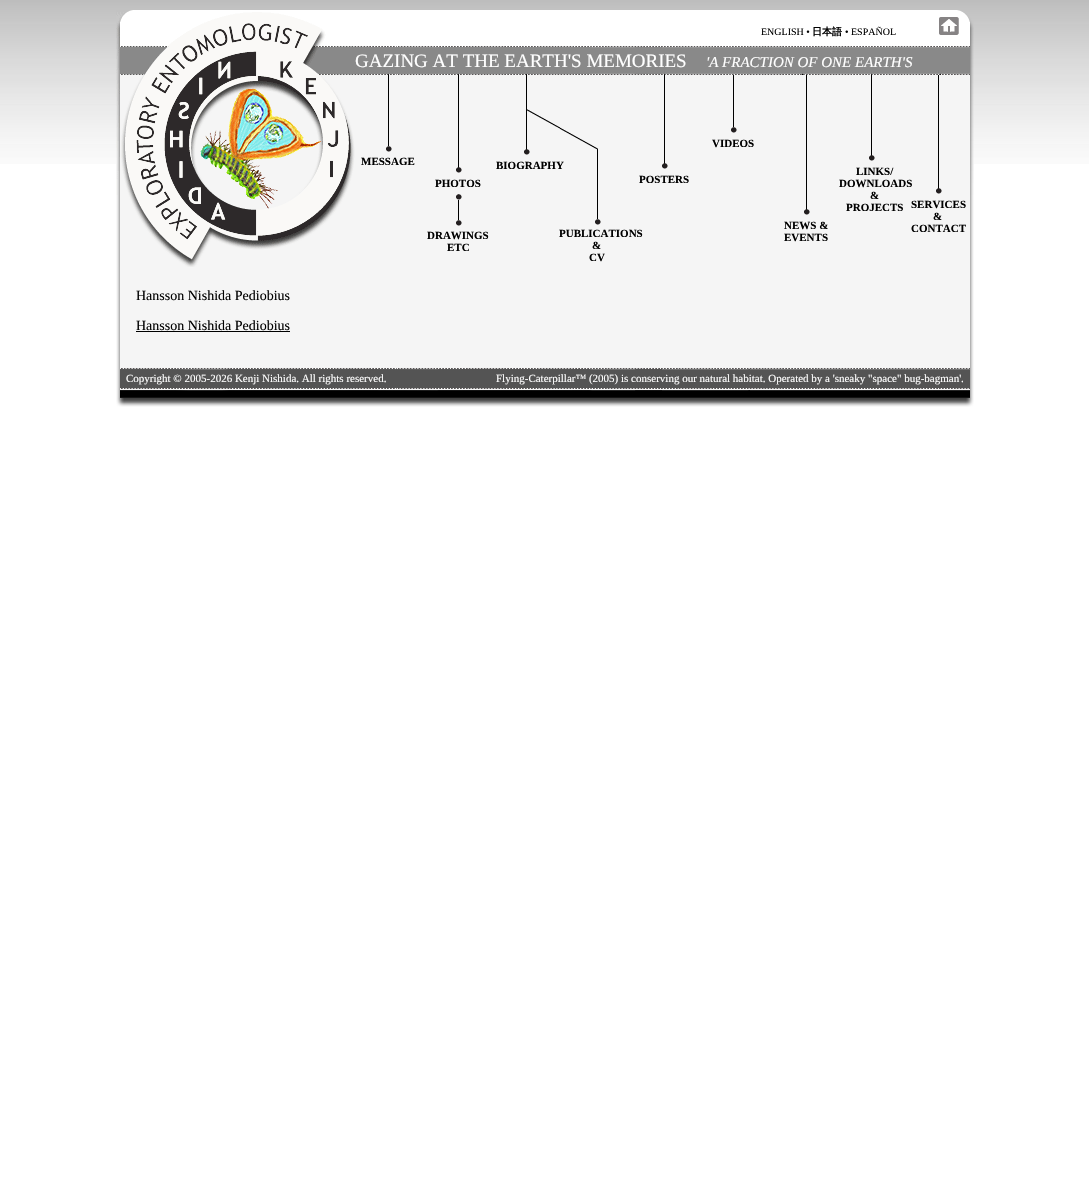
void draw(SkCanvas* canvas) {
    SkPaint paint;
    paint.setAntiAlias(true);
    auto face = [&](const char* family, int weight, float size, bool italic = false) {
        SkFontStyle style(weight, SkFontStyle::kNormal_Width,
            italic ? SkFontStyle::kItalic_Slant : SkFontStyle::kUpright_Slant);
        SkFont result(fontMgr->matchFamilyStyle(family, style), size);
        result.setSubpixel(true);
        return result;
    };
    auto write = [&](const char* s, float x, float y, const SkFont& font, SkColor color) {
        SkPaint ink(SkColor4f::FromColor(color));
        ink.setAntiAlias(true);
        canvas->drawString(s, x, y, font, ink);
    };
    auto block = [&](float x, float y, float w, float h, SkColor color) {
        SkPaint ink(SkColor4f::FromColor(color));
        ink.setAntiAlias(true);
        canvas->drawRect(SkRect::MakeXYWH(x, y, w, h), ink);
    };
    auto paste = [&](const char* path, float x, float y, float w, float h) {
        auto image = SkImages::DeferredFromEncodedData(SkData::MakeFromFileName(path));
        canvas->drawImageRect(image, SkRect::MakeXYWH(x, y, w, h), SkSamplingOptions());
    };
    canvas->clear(SK_ColorWHITE);
    paste("pic1.png", 0, 0, 1089, 164);
    paste("pic2.png", 116, 226, 858, 142);
    paste("pic3.png", 116, 10, 239, 257);
    paste("pic4.png", 355, 10, 619, 216);
    auto kFont1 = face("Liberation Serif", 400, 10);
    write("ENGLISH •", 761, 35, kFont1, SK_ColorBLACK);
    auto kFont2 = face("WenQuanYi Zen Hei", 700, 10);
    write("日本語", 812, 35, kFont2, SK_ColorBLACK);
    write("• ESPAÑOL", 845, 35, kFont1, SK_ColorBLACK);
    paste("pic5.png", 939, 17, 20, 18);
    auto kFont3 = face("Liberation Serif", 400, 19);
    write("GAZING AT THE EARTH'S MEMORIES", 355, 67, kFont3, SK_ColorWHITE);
    auto kFont4 = face("Liberation Serif", 400, 15, true);
    write("'A FRACTION OF ONE EARTH'S", 706, 67, kFont4, SK_ColorWHITE);
    auto kFont5 = face("Liberation Serif", 700, 11);
    write("VIDEOS", 712, 147, kFont5, SK_ColorBLACK);
    write("MESSAGE", 361, 165, kFont5, SK_ColorBLACK);
    write("BIOGRAPHY", 496, 169, kFont5, SK_ColorBLACK);
    write("PHOTOS", 435, 187, kFont5, SK_ColorBLACK);
    write("DRAWINGS", 427, 239, kFont5, SK_ColorBLACK);
    write("ETC", 447, 251, kFont5, SK_ColorBLACK);
    write("PUBLICATIONS", 559, 237, kFont5, SK_ColorBLACK);
    write("&", 592, 249, kFont5, SK_ColorBLACK);
    write("CV", 589, 261, kFont5, SK_ColorBLACK);
    write("POSTERS", 639, 183, kFont5, SK_ColorBLACK);
    write("NEWS &", 784, 229, kFont5, SK_ColorBLACK);
    write("EVENTS", 784, 241, kFont5, SK_ColorBLACK);
    write("LINKS/", 856, 175, kFont5, SK_ColorBLACK);
    write("DOWNLOADS", 839, 187, kFont5, SK_ColorBLACK);
    write("&", 870, 199, kFont5, SK_ColorBLACK);
    write("PROJECTS", 846, 211, kFont5, SK_ColorBLACK);
    write("SERVICES", 911, 208, kFont5, SK_ColorBLACK);
    write("&", 933, 220, kFont5, SK_ColorBLACK);
    write("CONTACT", 911, 232, kFont5, SK_ColorBLACK);
    auto kFont6 = face("Liberation Serif", 400, 14);
    write("Hansson Nishida Pediobius", 136, 300, kFont6, SK_ColorBLACK);
    write("Hansson Nishida Pediobius", 136, 330, kFont6, SK_ColorBLACK);
    block(136, 331, 154, 1, SK_ColorBLACK);
    paste("pic6.png", 116, 368, 858, 39);
    auto kFont7 = face("Liberation Serif", 400, 11);
    write("Copyright © 2005-2026 Kenji Nishida. All rights reserved.", 126, 382, kFont7, SK_ColorWHITE);
    write("Flying-Caterpillar™ (2005) is conserving our natural habitat. Operated by a 'sneaky \"space\" bug-bagman'.", 496, 382, kFont7, SK_ColorWHITE);
}
